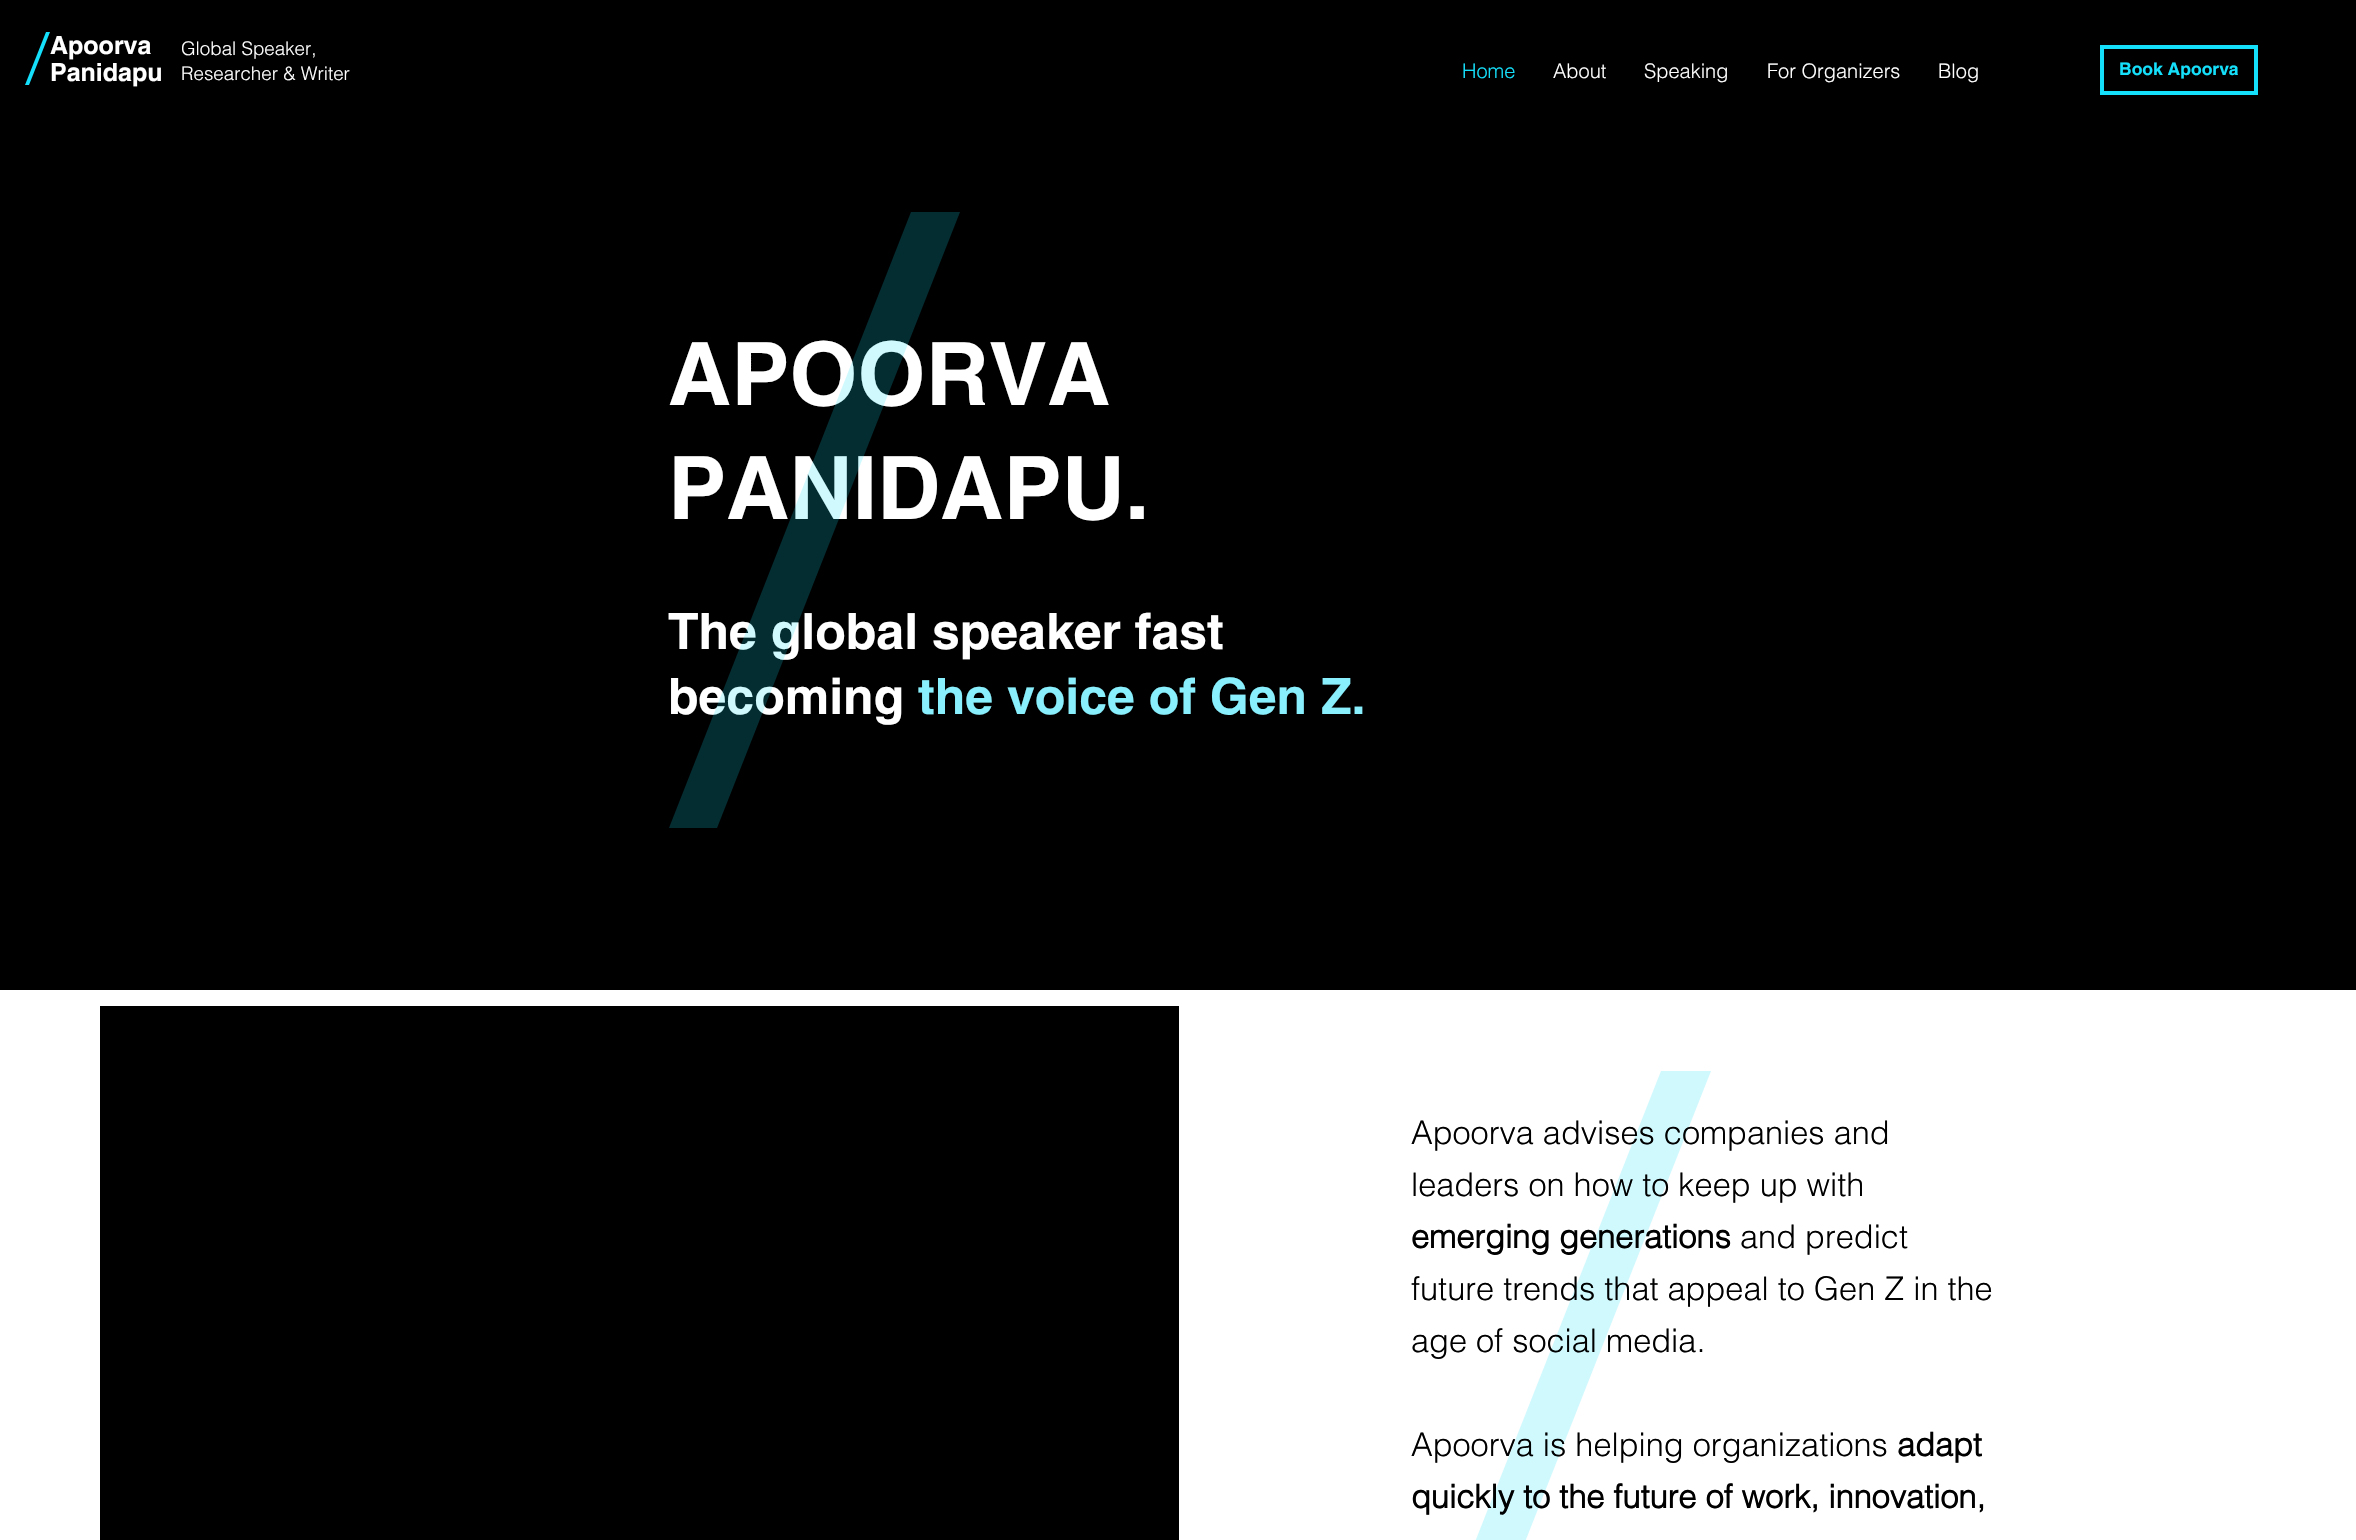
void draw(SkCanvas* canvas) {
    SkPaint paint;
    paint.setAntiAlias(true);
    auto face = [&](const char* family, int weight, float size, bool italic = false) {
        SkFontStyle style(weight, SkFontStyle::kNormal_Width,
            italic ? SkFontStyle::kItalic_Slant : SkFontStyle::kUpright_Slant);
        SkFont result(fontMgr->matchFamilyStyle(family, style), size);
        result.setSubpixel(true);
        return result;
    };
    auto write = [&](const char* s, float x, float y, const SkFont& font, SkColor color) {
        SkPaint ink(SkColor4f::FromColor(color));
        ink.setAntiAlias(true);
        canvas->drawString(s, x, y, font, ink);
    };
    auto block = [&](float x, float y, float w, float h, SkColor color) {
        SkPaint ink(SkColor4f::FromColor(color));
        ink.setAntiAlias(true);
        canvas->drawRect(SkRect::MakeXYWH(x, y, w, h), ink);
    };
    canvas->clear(SK_ColorBLACK);
    paint.setColor(SkColorSetRGB(21, 224, 251));
    canvas->drawPath(SkPathBuilder(SkPathFillType::kEvenOdd).moveTo(46, 32).lineTo(50, 32).lineTo(29, 85).lineTo(25, 85).close().detach(), paint);
    auto kFont1 = face("helvetica", 700, 25);
    write("Apoorva", 50, 54, kFont1, SK_ColorWHITE);
    write("Panidapu", 50, 81, kFont1, SK_ColorWHITE);
    auto kFont2 = face("helvetica", 300, 18.75f);
    write("Global Speaker,", 181, 55, kFont2, SK_ColorWHITE);
    write("Researcher & Writer", 181, 80, kFont2, SK_ColorWHITE);
    auto kFont3 = face("helvetica", 300, 20);
    write("Home", 1462, 78, kFont3, SkColorSetRGB(21, 224, 251));
    write("About", 1553, 78, kFont3, SK_ColorWHITE);
    write("Speaking", 1644, 78, kFont3, SK_ColorWHITE);
    write("For Organizers", 1767, 78, kFont3, SK_ColorWHITE);
    write("Blog", 1938, 78, kFont3, SK_ColorWHITE);
    paint.setStyle(SkPaint::kStroke_Style);
    paint.setStrokeWidth(4);
    canvas->drawRect(SkRect::MakeXYWH(2102, 47, 154, 46), paint);
    auto kFont4 = face("helvetica", 700, 17.5f);
    write("Book Apoorva", 2119, 75, kFont4, SkColorSetRGB(21, 224, 251));
    auto kFont5 = face("helvetica", 700, 87.5f);
    write("APOORVA", 668, 405, kFont5, SK_ColorWHITE);
    write("PANIDAPU.", 668, 519, kFont5, SK_ColorWHITE);
    auto kFont6 = face("helvetica", 700, 50);
    write("The global speaker fast", 668, 649, kFont6, SK_ColorWHITE);
    write("becoming", 668, 714, kFont6, SK_ColorWHITE);
    write("the voice of Gen Z.", 918, 714, kFont6, SkColorSetRGB(137, 239, 252));
    paint.setStyle(SkPaint::kFill_Style);
    paint.setColor(SkColorSetARGB(51, 21, 224, 251));
    canvas->drawPath(SkPathBuilder(SkPathFillType::kEvenOdd).moveTo(911, 212).lineTo(960, 212).lineTo(717, 828).lineTo(669, 828).close().detach(), paint);
    block(0, 990, 2356, 550, SK_ColorWHITE);
    block(100, 1006, 1079, 534, SK_ColorBLACK);
    paint.setColor(SkColorSetRGB(208, 249, 254));
    canvas->drawPath(SkPathBuilder(SkPathFillType::kEvenOdd).moveTo(1661, 1071).lineTo(1711, 1071).lineTo(1461, 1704).lineTo(1411, 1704).close().detach(), paint);
    auto kFont7 = face("helvetica", 300, 32.5f);
    write("Apoorva advises companies and", 1411, 1144, kFont7, SK_ColorBLACK);
    write("leaders on how to keep up with", 1411, 1196, kFont7, SK_ColorBLACK);
    auto kFont8 = face("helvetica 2", 700, 32.5f);
    write("emerging generations", 1411, 1248, kFont8, SK_ColorBLACK);
    write("and predict", 1740, 1248, kFont7, SK_ColorBLACK);
    write("future trends that appeal to Gen Z in the", 1411, 1300, kFont7, SK_ColorBLACK);
    write("age of social media.", 1411, 1352, kFont7, SK_ColorBLACK);
    write("Apoorva is helping organizations", 1411, 1456, kFont7, SK_ColorBLACK);
    write("adapt", 1897, 1456, kFont8, SK_ColorBLACK);
    write("quickly to the future of work, innovation,", 1411, 1508, kFont8, SK_ColorBLACK);
}
